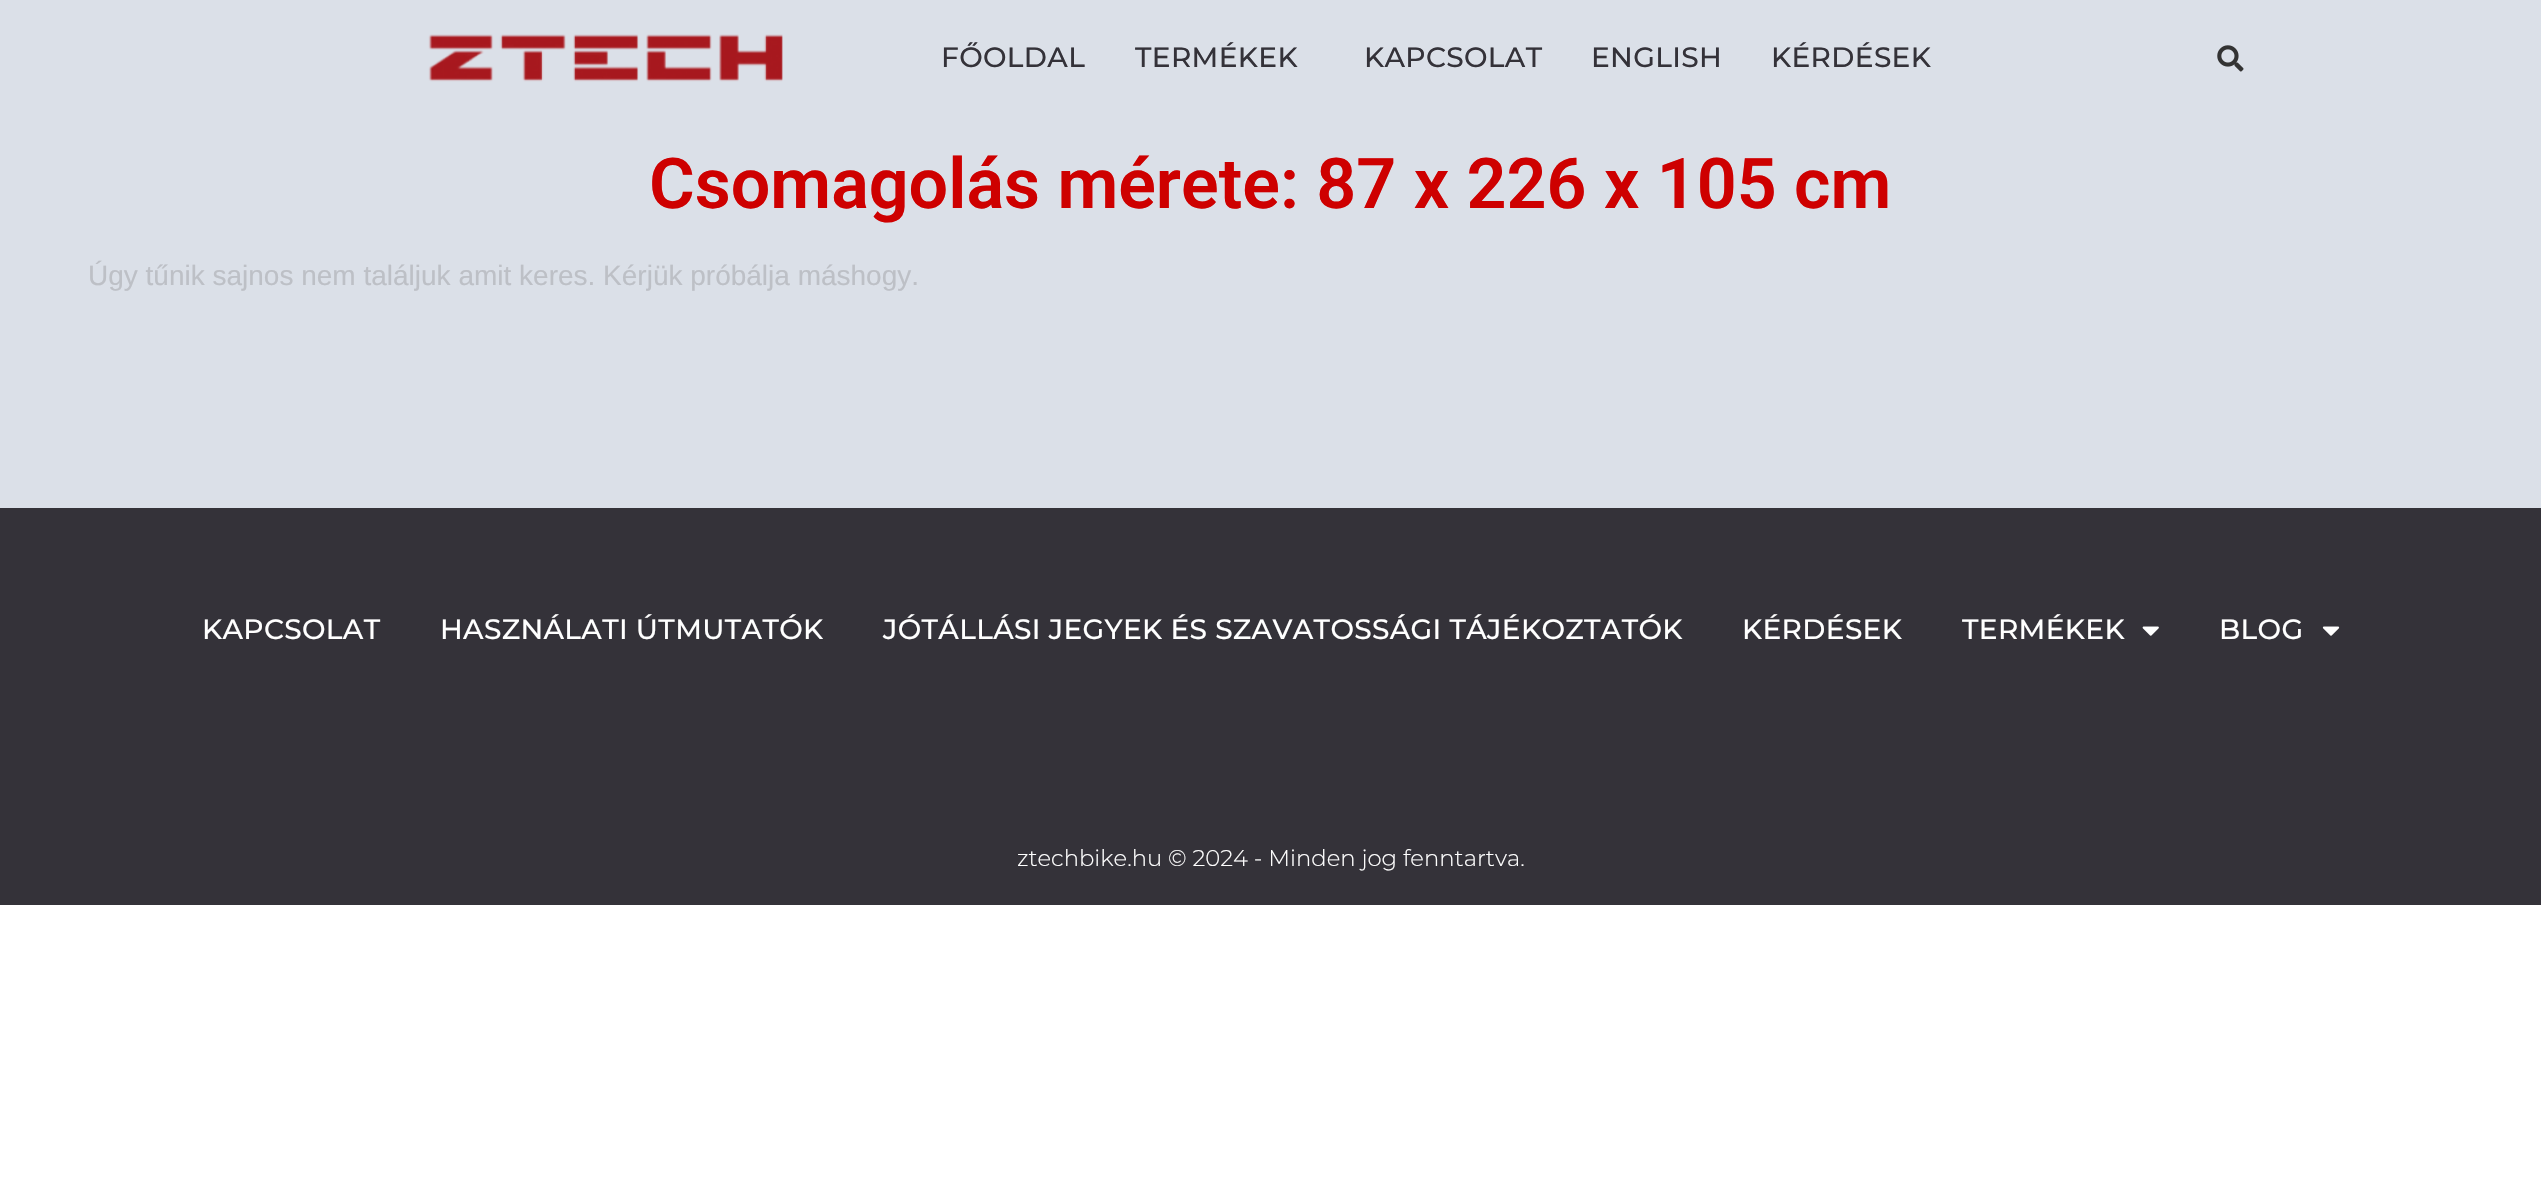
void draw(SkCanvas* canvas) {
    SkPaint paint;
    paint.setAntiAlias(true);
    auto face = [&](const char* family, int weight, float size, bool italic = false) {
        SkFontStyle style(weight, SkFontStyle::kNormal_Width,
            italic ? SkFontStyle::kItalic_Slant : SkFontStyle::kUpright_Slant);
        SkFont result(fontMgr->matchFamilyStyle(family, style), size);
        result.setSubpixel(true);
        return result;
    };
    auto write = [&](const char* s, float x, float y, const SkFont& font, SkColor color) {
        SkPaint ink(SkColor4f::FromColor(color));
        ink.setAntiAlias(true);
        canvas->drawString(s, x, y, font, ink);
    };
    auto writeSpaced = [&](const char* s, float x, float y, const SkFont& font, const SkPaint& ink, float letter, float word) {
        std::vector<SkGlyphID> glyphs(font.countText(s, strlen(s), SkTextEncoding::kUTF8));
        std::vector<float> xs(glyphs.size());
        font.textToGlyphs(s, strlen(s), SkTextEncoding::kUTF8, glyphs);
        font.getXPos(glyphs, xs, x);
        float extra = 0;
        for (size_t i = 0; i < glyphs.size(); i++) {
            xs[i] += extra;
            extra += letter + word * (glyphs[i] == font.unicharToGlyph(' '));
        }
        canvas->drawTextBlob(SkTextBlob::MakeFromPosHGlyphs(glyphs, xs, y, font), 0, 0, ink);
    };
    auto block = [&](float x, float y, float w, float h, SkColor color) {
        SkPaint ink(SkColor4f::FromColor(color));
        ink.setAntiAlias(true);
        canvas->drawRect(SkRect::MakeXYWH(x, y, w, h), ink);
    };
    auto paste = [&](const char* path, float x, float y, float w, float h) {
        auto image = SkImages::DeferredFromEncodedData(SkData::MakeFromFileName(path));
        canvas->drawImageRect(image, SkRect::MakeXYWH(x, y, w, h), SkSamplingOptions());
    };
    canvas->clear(SK_ColorWHITE);
    block(0, 0, 2541, 508, SkColorSetRGB(219, 224, 232));
    paste("pic1.png", 428, 34, 355, 48);
    auto kFont1 = face("Montserrat", 500, 28);
    paint.setColor(SkColorSetRGB(52, 50, 57));
    writeSpaced("FŐOLDAL", 941, 67, kFont1, paint, 0.35f, 0);
    writeSpaced("TERMÉKEK", 1135, 67, kFont1, paint, 0.35f, 0);
    writeSpaced("KAPCSOLAT", 1364, 67, kFont1, paint, 0.35f, 0);
    writeSpaced("ENGLISH", 1591, 67, kFont1, paint, 0.35f, 0);
    writeSpaced("KÉRDÉSEK", 1771, 67, kFont1, paint, 0.35f, 0);
    paste("pic2.png", 2217, 45, 27, 27);
    auto kFont2 = face("Roboto", 600, 70);
    write("Csomagolás mérete: 87 x 226 x 105 cm", 649, 208, kFont2, SkColorSetRGB(206, 0, 0));
    auto kFont3 = face("Liberation Sans", 400, 28);
    write("Úgy tűnik sajnos nem találjuk amit keres. Kérjük próbálja máshogy.", 88, 285, kFont3, SkColorSetRGB(189, 192, 198));
    block(0, 508, 2541, 397, SkColorSetRGB(52, 50, 57));
    paint.setColor(SK_ColorWHITE);
    writeSpaced("KAPCSOLAT", 202, 639, kFont1, paint, 0.35f, 0);
    writeSpaced("HASZNÁLATI ÚTMUTATÓK", 440, 639, kFont1, paint, 0.35f, 0);
    writeSpaced("JÓTÁLLÁSI JEGYEK ÉS SZAVATOSSÁGI TÁJÉKOZTATÓK", 883, 639, kFont1, paint, 0.35f, 0);
    writeSpaced("KÉRDÉSEK", 1742, 639, kFont1, paint, 0.35f, 0);
    writeSpaced("TERMÉKEK", 1962, 639, kFont1, paint, 0.35f, 0);
    paste("pic3.png", 2142, 626, 17, 10);
    writeSpaced("BLOG", 2219, 639, kFont1, paint, 0.35f, 0);
    paste("pic4.png", 2322, 626, 18, 10);
    auto kFont4 = face("Montserrat", 300, 22.75f);
    write("ztechbike.hu © 2024 - Minden jog fenntartva.", 1017, 866, kFont4, SK_ColorWHITE);
}
